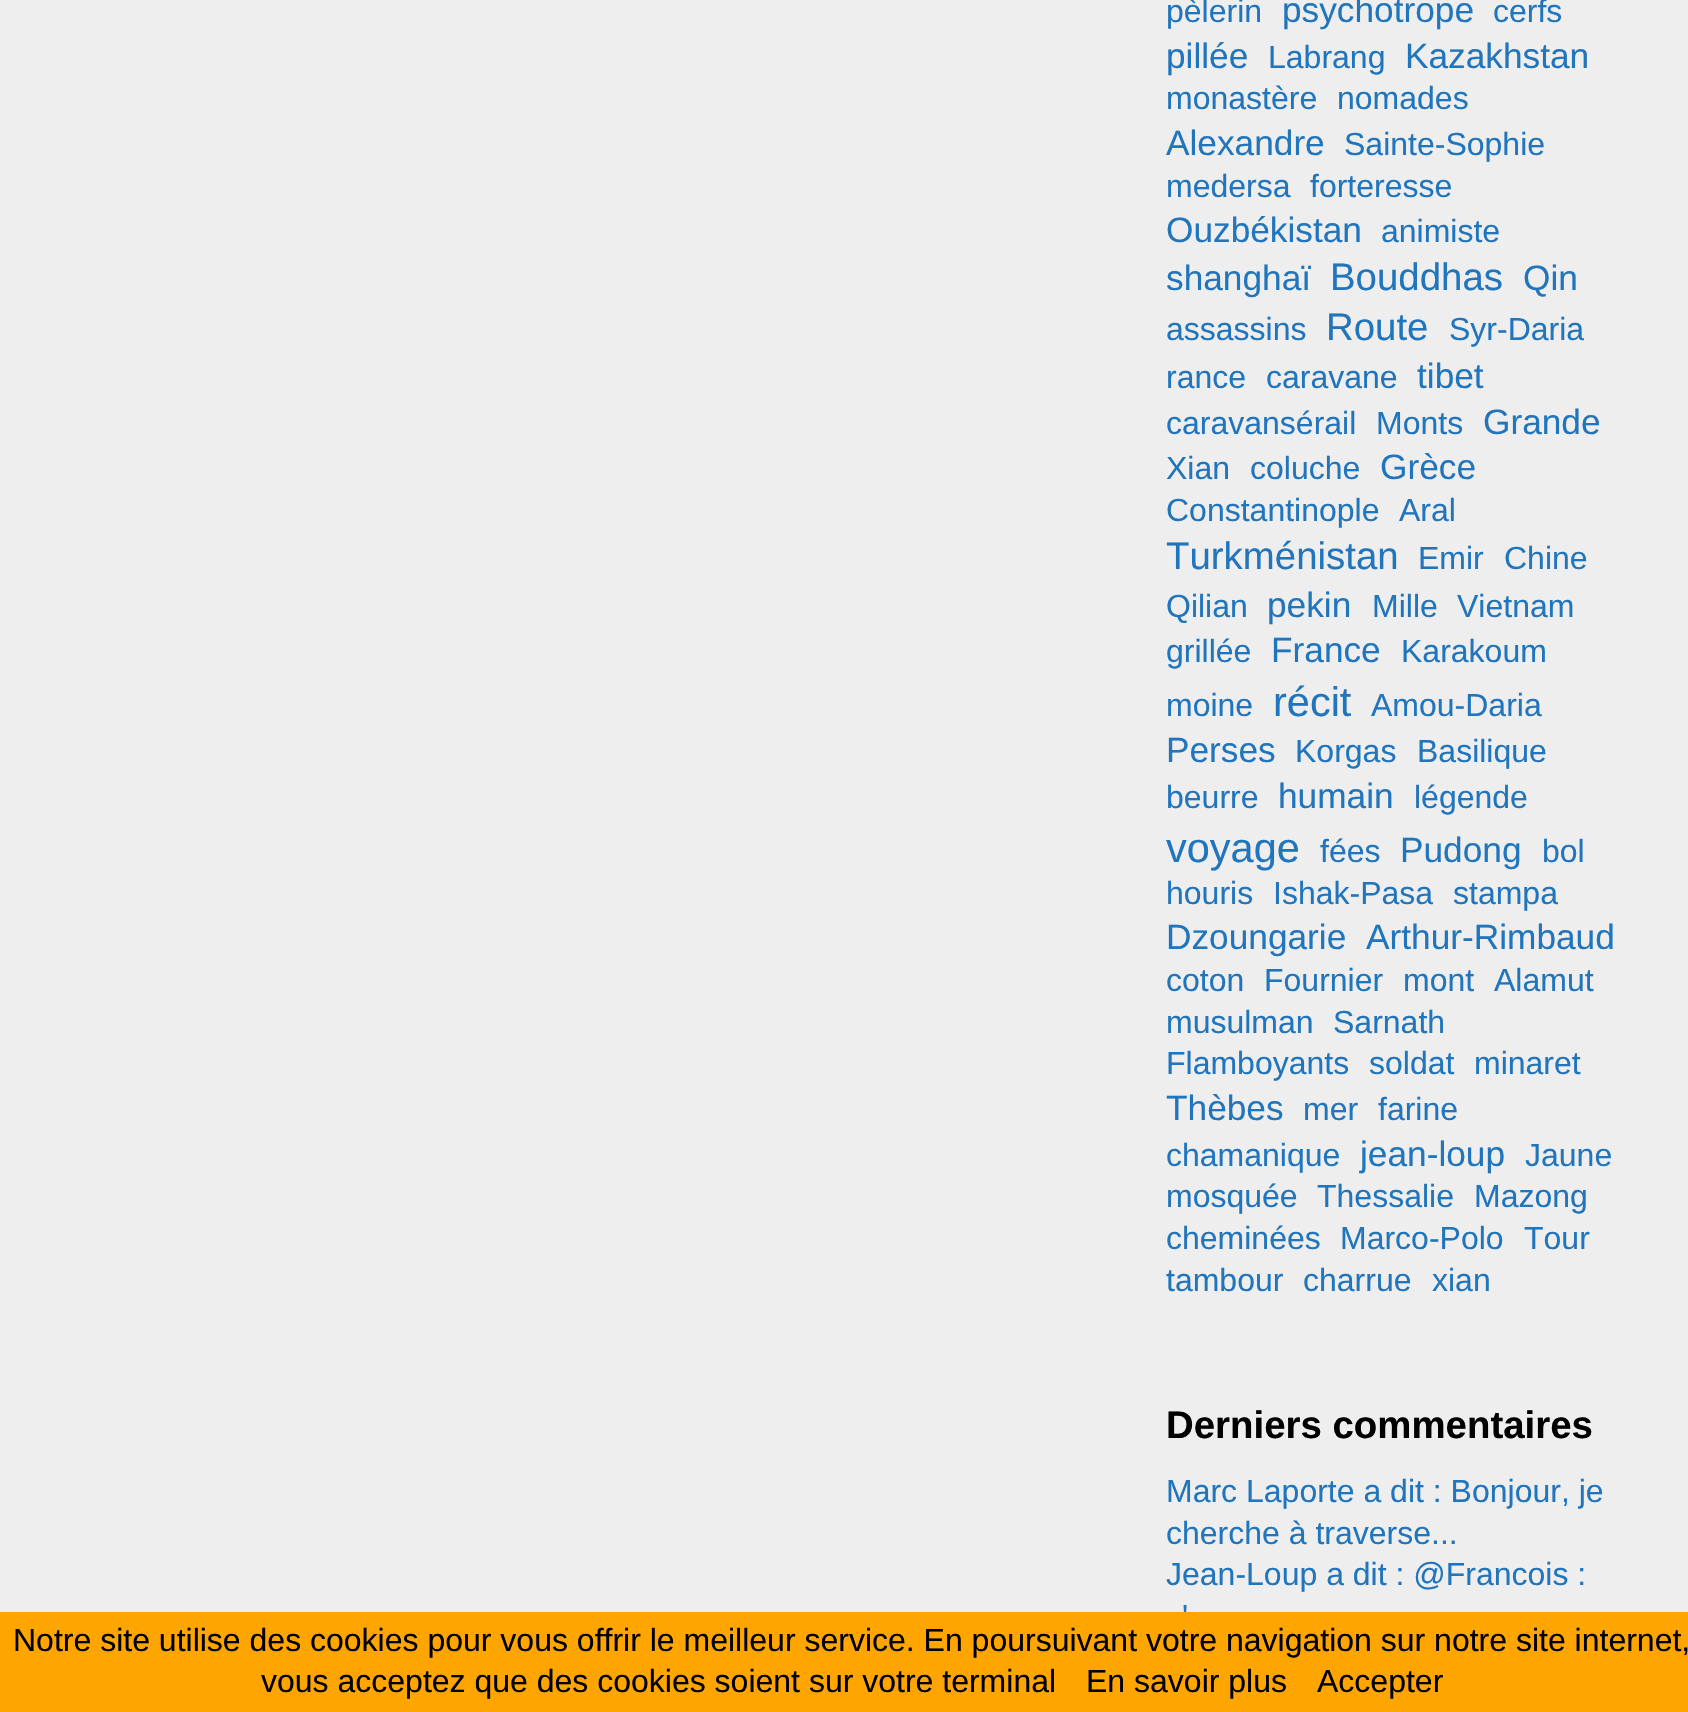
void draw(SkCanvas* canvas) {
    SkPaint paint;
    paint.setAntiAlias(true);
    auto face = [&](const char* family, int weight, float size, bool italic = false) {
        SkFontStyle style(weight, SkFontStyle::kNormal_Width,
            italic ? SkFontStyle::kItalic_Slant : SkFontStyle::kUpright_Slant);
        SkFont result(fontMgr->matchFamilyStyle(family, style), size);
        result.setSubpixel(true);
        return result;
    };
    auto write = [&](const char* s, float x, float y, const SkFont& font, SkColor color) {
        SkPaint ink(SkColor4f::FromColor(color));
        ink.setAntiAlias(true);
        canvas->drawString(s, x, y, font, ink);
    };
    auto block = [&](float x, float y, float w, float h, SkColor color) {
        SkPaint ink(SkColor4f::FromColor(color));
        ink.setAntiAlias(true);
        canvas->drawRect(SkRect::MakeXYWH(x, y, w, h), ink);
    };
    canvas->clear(SkColorSetRGB(238, 238, 238));
    auto kFont1 = face("Liberation Sans", 400, 32);
    write("pèlerin", 1166, 22, kFont1, SkColorSetRGB(33, 117, 189));
    auto kFont2 = face("Liberation Sans", 400, 35.25f);
    write("psychotrope", 1282, 22, kFont2, SkColorSetRGB(33, 117, 189));
    write("cerfs", 1493, 22, kFont1, SkColorSetRGB(33, 117, 189));
    write("pillée", 1166, 68, kFont2, SkColorSetRGB(33, 117, 189));
    write("Labrang", 1268, 68, kFont1, SkColorSetRGB(33, 117, 189));
    write("Kazakhstan", 1405, 68, kFont2, SkColorSetRGB(33, 117, 189));
    write("monastère", 1166, 109, kFont1, SkColorSetRGB(33, 117, 189));
    write("nomades", 1337, 109, kFont1, SkColorSetRGB(33, 117, 189));
    write("Alexandre", 1166, 155, kFont2, SkColorSetRGB(33, 117, 189));
    write("Sainte-Sophie", 1344, 155, kFont1, SkColorSetRGB(33, 117, 189));
    write("medersa", 1166, 197, kFont1, SkColorSetRGB(33, 117, 189));
    write("forteresse", 1310, 197, kFont1, SkColorSetRGB(33, 117, 189));
    write("Ouzbékistan", 1166, 242, kFont2, SkColorSetRGB(33, 117, 189));
    write("animiste", 1381, 242, kFont1, SkColorSetRGB(33, 117, 189));
    write("shanghaï", 1166, 290, kFont2, SkColorSetRGB(33, 117, 189));
    auto kFont3 = face("Liberation Sans", 400, 38.4f);
    write("Bouddhas", 1330, 290, kFont3, SkColorSetRGB(33, 117, 189));
    write("Qin", 1523, 290, kFont2, SkColorSetRGB(33, 117, 189));
    write("assassins", 1166, 340, kFont1, SkColorSetRGB(33, 117, 189));
    write("Route", 1326, 340, kFont3, SkColorSetRGB(33, 117, 189));
    write("Syr-Daria", 1449, 340, kFont1, SkColorSetRGB(33, 117, 189));
    write("rance", 1166, 388, kFont1, SkColorSetRGB(33, 117, 189));
    write("caravane", 1266, 388, kFont1, SkColorSetRGB(33, 117, 189));
    write("tibet", 1417, 388, kFont2, SkColorSetRGB(33, 117, 189));
    write("caravansérail", 1166, 434, kFont1, SkColorSetRGB(33, 117, 189));
    write("Monts", 1376, 434, kFont1, SkColorSetRGB(33, 117, 189));
    write("Grande", 1483, 434, kFont2, SkColorSetRGB(33, 117, 189));
    write("Xian", 1166, 479, kFont1, SkColorSetRGB(33, 117, 189));
    write("coluche", 1250, 479, kFont1, SkColorSetRGB(33, 117, 189));
    write("Grèce", 1380, 479, kFont2, SkColorSetRGB(33, 117, 189));
    write("Constantinople", 1166, 521, kFont1, SkColorSetRGB(33, 117, 189));
    write("Aral", 1399, 521, kFont1, SkColorSetRGB(33, 117, 189));
    write("Turkménistan", 1166, 569, kFont3, SkColorSetRGB(33, 117, 189));
    write("Emir", 1418, 569, kFont1, SkColorSetRGB(33, 117, 189));
    write("Chine", 1504, 569, kFont1, SkColorSetRGB(33, 117, 189));
    write("Qilian", 1166, 617, kFont1, SkColorSetRGB(33, 117, 189));
    write("pekin", 1267, 617, kFont2, SkColorSetRGB(33, 117, 189));
    write("Mille", 1372, 617, kFont1, SkColorSetRGB(33, 117, 189));
    write("Vietnam", 1457, 617, kFont1, SkColorSetRGB(33, 117, 189));
    write("grillée", 1166, 662, kFont1, SkColorSetRGB(33, 117, 189));
    write("France", 1271, 662, kFont2, SkColorSetRGB(33, 117, 189));
    write("Karakoum", 1401, 662, kFont1, SkColorSetRGB(33, 117, 189));
    write("moine", 1166, 716, kFont1, SkColorSetRGB(33, 117, 189));
    auto kFont4 = face("Liberation Sans", 400, 41.5f);
    write("récit", 1273, 716, kFont4, SkColorSetRGB(33, 117, 189));
    write("Amou-Daria", 1371, 716, kFont1, SkColorSetRGB(33, 117, 189));
    write("Perses", 1166, 762, kFont2, SkColorSetRGB(33, 117, 189));
    write("Korgas", 1295, 762, kFont1, SkColorSetRGB(33, 117, 189));
    write("Basilique", 1417, 762, kFont1, SkColorSetRGB(33, 117, 189));
    write("beurre", 1166, 808, kFont1, SkColorSetRGB(33, 117, 189));
    write("humain", 1278, 808, kFont2, SkColorSetRGB(33, 117, 189));
    write("légende", 1414, 808, kFont1, SkColorSetRGB(33, 117, 189));
    write("voyage", 1166, 862, kFont4, SkColorSetRGB(33, 117, 189));
    write("fées", 1320, 862, kFont1, SkColorSetRGB(33, 117, 189));
    write("Pudong", 1400, 862, kFont2, SkColorSetRGB(33, 117, 189));
    write("bol", 1542, 862, kFont1, SkColorSetRGB(33, 117, 189));
    write("houris", 1166, 904, kFont1, SkColorSetRGB(33, 117, 189));
    write("Ishak-Pasa", 1273, 904, kFont1, SkColorSetRGB(33, 117, 189));
    write("stampa", 1453, 904, kFont1, SkColorSetRGB(33, 117, 189));
    write("Dzoungarie", 1166, 949, kFont2, SkColorSetRGB(33, 117, 189));
    write("Arthur-Rimbaud", 1366, 949, kFont2, SkColorSetRGB(33, 117, 189));
    write("coton", 1166, 991, kFont1, SkColorSetRGB(33, 117, 189));
    write("Fournier", 1264, 991, kFont1, SkColorSetRGB(33, 117, 189));
    write("mont", 1403, 991, kFont1, SkColorSetRGB(33, 117, 189));
    write("Alamut", 1494, 991, kFont1, SkColorSetRGB(33, 117, 189));
    write("musulman", 1166, 1033, kFont1, SkColorSetRGB(33, 117, 189));
    write("Sarnath", 1333, 1033, kFont1, SkColorSetRGB(33, 117, 189));
    write("Flamboyants", 1166, 1074, kFont1, SkColorSetRGB(33, 117, 189));
    write("soldat", 1369, 1074, kFont1, SkColorSetRGB(33, 117, 189));
    write("minaret", 1474, 1074, kFont1, SkColorSetRGB(33, 117, 189));
    write("Thèbes", 1166, 1120, kFont2, SkColorSetRGB(33, 117, 189));
    write("mer", 1303, 1120, kFont1, SkColorSetRGB(33, 117, 189));
    write("farine", 1378, 1120, kFont1, SkColorSetRGB(33, 117, 189));
    write("chamanique", 1166, 1166, kFont1, SkColorSetRGB(33, 117, 189));
    write("jean-loup", 1360, 1166, kFont2, SkColorSetRGB(33, 117, 189));
    write("Jaune", 1525, 1166, kFont1, SkColorSetRGB(33, 117, 189));
    write("mosquée", 1166, 1207, kFont1, SkColorSetRGB(33, 117, 189));
    write("Thessalie", 1317, 1207, kFont1, SkColorSetRGB(33, 117, 189));
    write("Mazong", 1474, 1207, kFont1, SkColorSetRGB(33, 117, 189));
    write("cheminées", 1166, 1249, kFont1, SkColorSetRGB(33, 117, 189));
    write("Marco-Polo", 1340, 1249, kFont1, SkColorSetRGB(33, 117, 189));
    write("Tour", 1524, 1249, kFont1, SkColorSetRGB(33, 117, 189));
    write("tambour", 1166, 1291, kFont1, SkColorSetRGB(33, 117, 189));
    write("charrue", 1303, 1291, kFont1, SkColorSetRGB(33, 117, 189));
    write("xian", 1432, 1291, kFont1, SkColorSetRGB(33, 117, 189));
    auto kFont5 = face("Liberation Sans", 700, 38.4f);
    write("Derniers commentaires", 1166, 1438, kFont5, SK_ColorBLACK);
    write("Marc Laporte a dit : Bonjour, je", 1166, 1502, kFont1, SkColorSetRGB(33, 117, 189));
    write("cherche à traverse...", 1166, 1544, kFont1, SkColorSetRGB(33, 117, 189));
    write("Jean-Loup a dit : @Francois :", 1166, 1585, kFont1, SkColorSetRGB(33, 117, 189));
    write("'", 1182, 1627, kFont1, SkColorSetRGB(33, 117, 189));
    block(0, 1612, 1688, 100, SkColorSetRGB(255, 165, 0));
    write("Notre site utilise des cookies pour vous offrir le meilleur service. En poursuivant votre navigation sur notre site internet,", 13, 1651, kFont1, SK_ColorBLACK);
    write("vous acceptez que des cookies soient sur votre terminal", 261, 1692, kFont1, SK_ColorBLACK);
    write("En savoir plus", 1086, 1692, kFont1, SK_ColorBLACK);
    write("Accepter", 1317, 1692, kFont1, SK_ColorBLACK);
}
